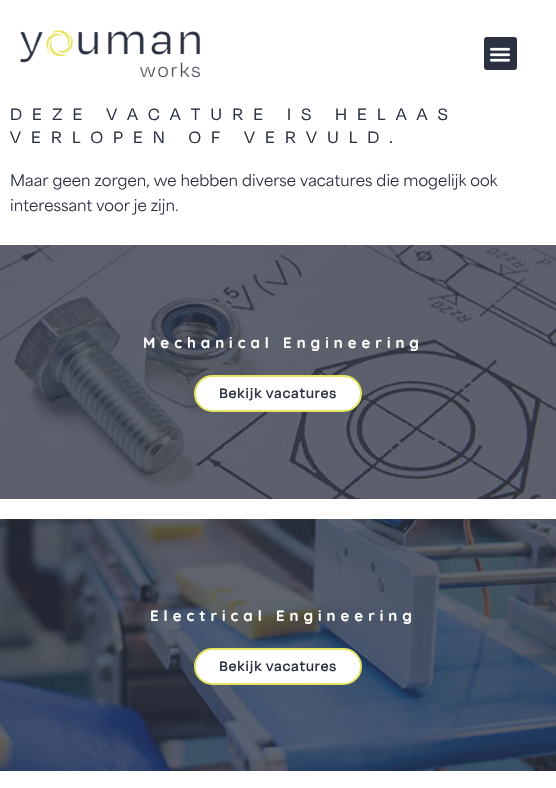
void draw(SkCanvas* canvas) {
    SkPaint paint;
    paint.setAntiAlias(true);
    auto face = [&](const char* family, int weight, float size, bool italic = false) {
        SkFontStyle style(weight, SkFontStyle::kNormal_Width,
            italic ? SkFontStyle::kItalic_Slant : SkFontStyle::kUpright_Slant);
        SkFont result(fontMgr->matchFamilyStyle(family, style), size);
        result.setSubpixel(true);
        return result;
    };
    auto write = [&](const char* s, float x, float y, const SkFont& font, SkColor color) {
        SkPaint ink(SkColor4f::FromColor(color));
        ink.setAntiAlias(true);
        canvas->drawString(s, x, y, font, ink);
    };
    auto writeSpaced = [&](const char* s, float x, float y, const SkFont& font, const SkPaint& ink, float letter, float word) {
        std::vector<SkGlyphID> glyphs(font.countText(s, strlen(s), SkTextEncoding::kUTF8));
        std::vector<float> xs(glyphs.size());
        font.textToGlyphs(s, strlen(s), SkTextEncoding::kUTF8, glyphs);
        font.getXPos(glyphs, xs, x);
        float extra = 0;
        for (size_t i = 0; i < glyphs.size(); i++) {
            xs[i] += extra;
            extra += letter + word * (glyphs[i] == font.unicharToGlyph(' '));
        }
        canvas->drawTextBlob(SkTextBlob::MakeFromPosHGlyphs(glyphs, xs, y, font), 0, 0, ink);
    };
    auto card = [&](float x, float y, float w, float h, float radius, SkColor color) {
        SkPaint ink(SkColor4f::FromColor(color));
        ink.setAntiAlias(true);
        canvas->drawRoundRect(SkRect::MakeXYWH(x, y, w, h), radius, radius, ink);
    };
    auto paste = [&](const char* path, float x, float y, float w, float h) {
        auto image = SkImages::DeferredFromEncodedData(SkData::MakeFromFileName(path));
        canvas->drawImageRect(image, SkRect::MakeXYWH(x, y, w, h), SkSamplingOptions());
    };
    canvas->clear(SK_ColorWHITE);
    paste("pic1.png", 20, 30, 180, 47);
    card(484, 37, 33, 33, 3, SkColorSetRGB(43, 49, 65));
    paste("pic2.png", 489, 47, 22, 15);
    auto kFont1 = face("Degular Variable", 400, 19);
    paint.setColor(SkColorSetRGB(43, 49, 65));
    writeSpaced("DEZE VACATURE IS HELAAS", 10, 120, kFont1, paint, 10, 0);
    writeSpaced("VERLOPEN OF VERVULD.", 10, 143, kFont1, paint, 10, 0);
    auto kFont2 = face("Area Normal", 400, 15);
    write("Maar geen zorgen, we hebben diverse vacatures die mogelijk ook", 10, 186, kFont2, SkColorSetRGB(43, 49, 65));
    write("interessant voor je zijn.", 10, 211, kFont2, SkColorSetRGB(43, 49, 65));
    paste("pic3.png", 0, 245, 556, 254);
    auto kFont3 = face("Quicksand", 700, 15);
    paint.setColor(SK_ColorWHITE);
    writeSpaced("Mechanical Engineering", 143, 348, kFont3, paint, 5, 0);
    canvas->drawRoundRect(SkRect::MakeXYWH(195, 376, 166, 35), 17.5f, 17.5f, paint);
    paint.setStyle(SkPaint::kStroke_Style);
    paint.setStrokeWidth(2);
    paint.setColor(SkColorSetRGB(229, 227, 95));
    canvas->drawRoundRect(SkRect::MakeXYWH(195, 376, 166, 35), 17.5f, 17.5f, paint);
    auto kFont4 = face("Degular Variable", 700, 15);
    paint.setStyle(SkPaint::kFill_Style);
    paint.setColor(SkColorSetRGB(43, 49, 65));
    writeSpaced("Bekijk vacatures", 219, 398, kFont4, paint, 1, 0);
    paste("pic4.png", 0, 519, 556, 252);
    paint.setColor(SK_ColorWHITE);
    writeSpaced("Electrical Engineering", 150, 621, kFont3, paint, 5, 0);
    canvas->drawRoundRect(SkRect::MakeXYWH(195, 649, 166, 35), 17.5f, 17.5f, paint);
    paint.setStyle(SkPaint::kStroke_Style);
    paint.setColor(SkColorSetRGB(229, 227, 95));
    canvas->drawRoundRect(SkRect::MakeXYWH(195, 649, 166, 35), 17.5f, 17.5f, paint);
    paint.setStyle(SkPaint::kFill_Style);
    paint.setColor(SkColorSetRGB(43, 49, 65));
    writeSpaced("Bekijk vacatures", 219, 671, kFont4, paint, 1, 0);
}
